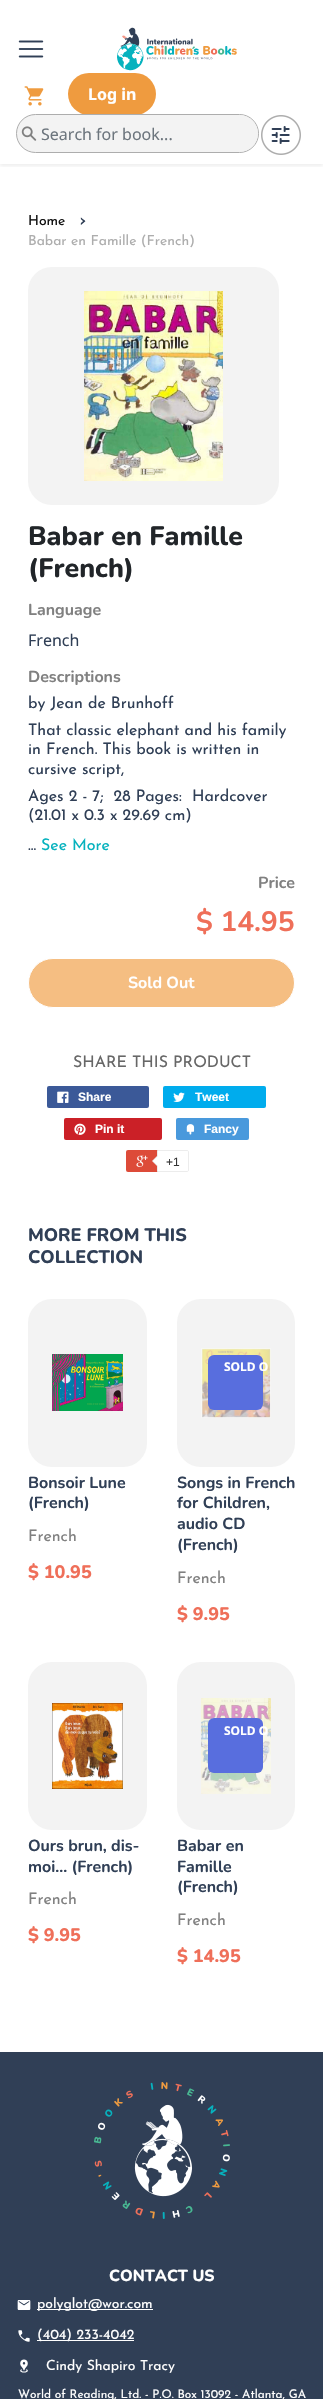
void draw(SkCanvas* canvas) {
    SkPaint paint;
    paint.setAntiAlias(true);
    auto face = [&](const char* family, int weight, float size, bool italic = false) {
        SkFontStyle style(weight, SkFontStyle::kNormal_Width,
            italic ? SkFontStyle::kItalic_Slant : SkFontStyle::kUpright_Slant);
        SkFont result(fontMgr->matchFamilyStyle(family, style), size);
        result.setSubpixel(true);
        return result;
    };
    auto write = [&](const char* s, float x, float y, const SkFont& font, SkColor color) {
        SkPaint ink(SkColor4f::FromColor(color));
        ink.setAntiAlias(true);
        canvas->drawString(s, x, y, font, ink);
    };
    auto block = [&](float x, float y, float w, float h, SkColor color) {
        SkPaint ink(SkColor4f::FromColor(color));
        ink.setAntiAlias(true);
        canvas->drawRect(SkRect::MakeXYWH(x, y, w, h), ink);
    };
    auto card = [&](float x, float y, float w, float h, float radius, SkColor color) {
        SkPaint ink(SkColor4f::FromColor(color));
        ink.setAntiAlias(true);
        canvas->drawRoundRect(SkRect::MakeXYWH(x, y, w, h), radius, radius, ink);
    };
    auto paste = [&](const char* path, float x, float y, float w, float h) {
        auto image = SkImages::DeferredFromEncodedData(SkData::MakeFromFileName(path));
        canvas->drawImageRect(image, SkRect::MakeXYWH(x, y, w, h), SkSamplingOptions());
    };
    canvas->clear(SK_ColorWHITE);
    canvas->save();
    canvas->clipRect(SkRect::MakeXYWH(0, 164, 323, 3));
    paint.setColor(SkColorSetARGB(18, 0, 0, 0));
    paint.setMaskFilter(SkMaskFilter::MakeBlur(kNormal_SkBlurStyle, 2));
    canvas->drawRect(SkRect::MakeXYWH(0, 2, 323, 164), paint);
    paint.setMaskFilter(nullptr);
    canvas->restore();
    paste("pic1.png", 18, 40, 26, 18);
    paste("pic2.png", 117, 27, 120, 44);
    paste("pic3.png", 24, 86, 20, 20);
    card(68, 73, 88, 42, 21, SkColorSetRGB(239, 155, 63));
    auto kFont1 = face("Noto Sans", 700, 16);
    write("Log in", 88, 100, kFont1, SK_ColorWHITE);
    paint.setColor(SkColorSetRGB(243, 243, 243));
    canvas->drawRoundRect(SkRect::MakeXYWH(16.5f, 114.5f, 242, 38), 19, 19, paint);
    paint.setStyle(SkPaint::kStroke_Style);
    paint.setStrokeWidth(1);
    paint.setColor(SkColorSetRGB(173, 173, 173));
    canvas->drawRoundRect(SkRect::MakeXYWH(16.5f, 114.5f, 242, 38), 19, 19, paint);
    paste("pic4.png", 21, 126, 16, 15);
    card(41, 115, 217, 37, 18.5f, SkColorSetRGB(243, 243, 243));
    auto kFont2 = face("Noto Sans", 400, 16);
    write("Search for book...", 41, 140, kFont2, SkColorSetRGB(108, 117, 125));
    paste("pic5.png", 261, 115, 40, 40);
    auto kFont3 = face("Josefin Sans", 100, 14);
    write("Home", 28, 225, kFont3, SkColorSetRGB(17, 17, 17));
    auto kFont4 = face("Josefin Sans", 100, 20);
    write("›", 79, 226, kFont4, SkColorSetRGB(48, 63, 86));
    write("Babar en Famille (French)", 28, 245, kFont3, SkColorSetRGB(173, 173, 173));
    card(28, 267, 251, 238, 24, SkColorSetRGB(243, 243, 243));
    paste("pic6.png", 84, 291, 139, 190);
    auto kFont5 = face("Nunito", 800, 26.75f);
    write("Babar en Famille", 28, 545, kFont5, SkColorSetRGB(33, 37, 41));
    write("(French)", 28, 577, kFont5, SkColorSetRGB(33, 37, 41));
    auto kFont6 = face("Nunito", 700, 16);
    write("Language", 28, 615, kFont6, SkColorSetRGB(128, 128, 128));
    write("French", 28, 646, kFont2, SkColorSetRGB(48, 63, 86));
    write("Descriptions", 28, 682, kFont6, SkColorSetRGB(128, 128, 128));
    auto kFont7 = face("Josefin Sans", 100, 16);
    write("by Jean de Brunhoff", 28, 708, kFont7, SkColorSetRGB(48, 63, 86));
    write("That classic elephant and his family", 28, 735, kFont7, SkColorSetRGB(48, 63, 86));
    write("in French. This book is written in", 28, 754, kFont7, SkColorSetRGB(48, 63, 86));
    write("cursive script,", 28, 774, kFont7, SkColorSetRGB(48, 63, 86));
    write("Ages 2 - 7;  28 Pages:  Hardcover", 28, 801, kFont7, SkColorSetRGB(48, 63, 86));
    write("(21.01 x 0.3 x 29.69 cm)", 28, 820, kFont7, SkColorSetRGB(48, 63, 86));
    write("...", 28, 850, kFont7, SkColorSetRGB(48, 63, 86));
    write("See More", 41, 850, kFont7, SkColorSetRGB(6, 178, 190));
    write("Price", 258, 888, kFont6, SkColorSetRGB(128, 128, 128));
    auto kFont8 = face("Nunito", 700, 28);
    write("$ 14.95", 196, 931, kFont8, SkColorSetRGB(239, 111, 89));
    paint.setStyle(SkPaint::kFill_Style);
    paint.setColor(SkColorSetRGB(245, 190, 130));
    canvas->drawRoundRect(SkRect::MakeXYWH(28.5f, 958.5f, 266, 49), 24.5f, 24.5f, paint);
    paint.setStyle(SkPaint::kStroke_Style);
    paint.setColor(SK_ColorWHITE);
    canvas->drawRoundRect(SkRect::MakeXYWH(28.5f, 958.5f, 266, 49), 24.5f, 24.5f, paint);
    write("Sold Out", 128, 988, kFont6, SK_ColorWHITE);
    write("SHARE THIS PRODUCT", 73, 1067, kFont7, SkColorSetRGB(103, 103, 103));
    card(47, 1086, 102, 22, 2, SkColorSetRGB(59, 89, 152));
    paste("pic7.png", 57, 1091, 12, 12);
    auto kFont9 = face("Liberation Sans", 700, 12);
    write("Share", 78, 1101, kFont9, SK_ColorWHITE);
    card(163, 1086, 103, 22, 2, SkColorSetRGB(0, 172, 237));
    paste("pic8.png", 173, 1092, 12, 10);
    write("Tweet", 195, 1101, kFont9, SK_ColorWHITE);
    card(64, 1118, 98, 22, 2, SkColorSetRGB(203, 32, 39));
    paste("pic9.png", 74, 1123, 12, 12);
    write("Pin it", 95, 1133, kFont9, SK_ColorWHITE);
    card(176, 1118, 73, 22, 2, SkColorSetRGB(73, 153, 220));
    paste("pic10.png", 186, 1124, 9, 11);
    write("Fancy", 204, 1133, kFont9, SK_ColorWHITE);
    card(126, 1150, 61, 22, 2, SkColorSetRGB(221, 75, 57));
    paste("pic11.png", 136, 1155, 12, 12);
    paint.setStyle(SkPaint::kFill_Style);
    canvas->drawPath(SkPathBuilder().moveTo(157.5f, 1150.5f).lineTo(187, 1150.5f).cubicTo(188, 1150.5f, 188.5f, 1151, 188.5f, 1152).lineTo(188.5f, 1170).cubicTo(188.5f, 1171, 188, 1171.5f, 187, 1171.5f).lineTo(157.5f, 1171.5f).close().detach(), paint);
    paint.setStyle(SkPaint::kStroke_Style);
    paint.setColor(SkColorSetRGB(236, 236, 236));
    canvas->drawPath(SkPathBuilder().moveTo(157.5f, 1150.5f).lineTo(187, 1150.5f).cubicTo(188, 1150.5f, 188.5f, 1151, 188.5f, 1152).lineTo(188.5f, 1170).cubicTo(188.5f, 1171, 188, 1171.5f, 187, 1171.5f).lineTo(157.5f, 1171.5f).close().detach(), paint);
    paint.setStyle(SkPaint::kFill_Style);
    canvas->drawPath(SkPathBuilder().moveTo(158, 1155).lineTo(158, 1167).lineTo(152, 1161).close().detach(), paint);
    paint.setColor(SK_ColorWHITE);
    canvas->drawPath(SkPathBuilder().moveTo(159, 1155).lineTo(159, 1167).lineTo(153, 1161).close().detach(), paint);
    auto kFont10 = face("Liberation Sans", 400, 12);
    write("+1", 166, 1166, kFont10, SkColorSetRGB(51, 51, 51));
    auto kFont11 = face("Nunito", 800, 18);
    write("MORE FROM THIS", 28, 1241, kFont11, SkColorSetRGB(48, 63, 86));
    write("COLLECTION", 28, 1263, kFont11, SkColorSetRGB(48, 63, 86));
    card(28, 1299, 119, 168, 24, SkColorSetRGB(243, 243, 243));
    paste("pic12.png", 52, 1354, 71, 57);
    write("Bonsoir Lune", 28, 1488, kFont6, SkColorSetRGB(48, 63, 86));
    write("(French)", 28, 1508, kFont6, SkColorSetRGB(48, 63, 86));
    write("French", 28, 1541, kFont7, SkColorSetRGB(128, 128, 128));
    write("$ 10.95", 28, 1578, kFont11, SkColorSetRGB(239, 111, 89));
    card(177, 1299, 118, 168, 24, SkColorSetRGB(243, 243, 243));
    paste("pic13.png", 201, 1348, 70, 70);
    card(208, 1355, 55, 55, 6, SkColorSetRGB(88, 110, 222));
    auto kFont12 = face("Noto Sans", 700, 12);
    write("SOLD O", 224, 1371, kFont12, SK_ColorWHITE);
    write("Songs in French", 177, 1488, kFont6, SkColorSetRGB(48, 63, 86));
    write("for Children,", 177, 1508, kFont6, SkColorSetRGB(48, 63, 86));
    write("audio CD", 177, 1529, kFont6, SkColorSetRGB(48, 63, 86));
    write("(French)", 177, 1550, kFont6, SkColorSetRGB(48, 63, 86));
    write("French", 177, 1583, kFont7, SkColorSetRGB(128, 128, 128));
    write("$ 9.95", 177, 1620, kFont11, SkColorSetRGB(239, 111, 89));
    card(28, 1662, 119, 168, 24, SkColorSetRGB(243, 243, 243));
    paste("pic14.png", 52, 1703, 71, 86);
    write("Ours brun, dis-", 28, 1851, kFont6, SkColorSetRGB(48, 63, 86));
    write("moi... (French)", 28, 1872, kFont6, SkColorSetRGB(48, 63, 86));
    write("French", 28, 1904, kFont7, SkColorSetRGB(128, 128, 128));
    write("$ 9.95", 28, 1941, kFont11, SkColorSetRGB(239, 111, 89));
    card(177, 1662, 118, 168, 24, SkColorSetRGB(243, 243, 243));
    paste("pic15.png", 201, 1698, 70, 96);
    card(208, 1718, 55, 55, 6, SkColorSetRGB(88, 110, 222));
    write("SOLD O", 224, 1735, kFont12, SK_ColorWHITE);
    write("Babar en", 177, 1851, kFont6, SkColorSetRGB(48, 63, 86));
    write("Famille", 177, 1872, kFont6, SkColorSetRGB(48, 63, 86));
    write("(French)", 177, 1892, kFont6, SkColorSetRGB(48, 63, 86));
    write("French", 177, 1925, kFont7, SkColorSetRGB(128, 128, 128));
    write("$ 14.95", 177, 1962, kFont11, SkColorSetRGB(239, 111, 89));
    block(0, 2052, 323, 347, SkColorSetRGB(48, 63, 86));
    paste("pic16.png", 94, 2082, 136, 137);
    auto kFont13 = face("Nunito", 800, 16);
    write("CONTACT US", 109, 2281, kFont13, SK_ColorWHITE);
    paste("pic17.png", 17, 2300, 14, 10);
    block(37, 2309, 116, 1, SK_ColorWHITE);
    write("polyglot@wor.com", 37, 2308, kFont3, SK_ColorWHITE);
    paste("pic18.png", 18, 2330, 12, 12);
    block(37, 2340, 97, 1, SK_ColorWHITE);
    write("(404) 233-4042", 37, 2339, kFont3, SK_ColorWHITE);
    paste("pic19.png", 20, 2359, 8, 14);
    write("Cindy Shapiro Tracy", 46, 2370, kFont3, SK_ColorWHITE);
    auto kFont14 = face("Josefin Sans", 100, 11.9f);
    write("World of Reading, Ltd. - P.O. Box 13092 - Atlanta, GA", 18, 2398, kFont14, SK_ColorWHITE);
}
